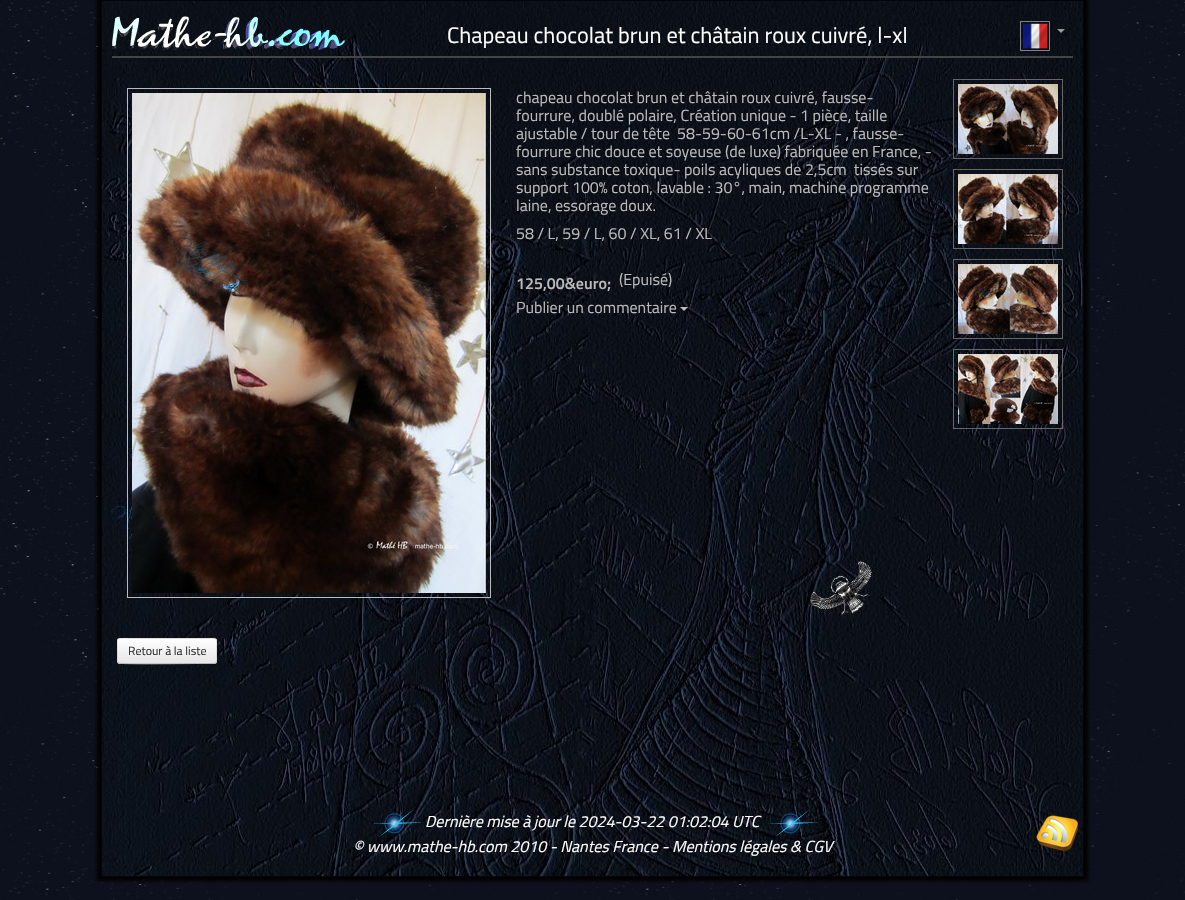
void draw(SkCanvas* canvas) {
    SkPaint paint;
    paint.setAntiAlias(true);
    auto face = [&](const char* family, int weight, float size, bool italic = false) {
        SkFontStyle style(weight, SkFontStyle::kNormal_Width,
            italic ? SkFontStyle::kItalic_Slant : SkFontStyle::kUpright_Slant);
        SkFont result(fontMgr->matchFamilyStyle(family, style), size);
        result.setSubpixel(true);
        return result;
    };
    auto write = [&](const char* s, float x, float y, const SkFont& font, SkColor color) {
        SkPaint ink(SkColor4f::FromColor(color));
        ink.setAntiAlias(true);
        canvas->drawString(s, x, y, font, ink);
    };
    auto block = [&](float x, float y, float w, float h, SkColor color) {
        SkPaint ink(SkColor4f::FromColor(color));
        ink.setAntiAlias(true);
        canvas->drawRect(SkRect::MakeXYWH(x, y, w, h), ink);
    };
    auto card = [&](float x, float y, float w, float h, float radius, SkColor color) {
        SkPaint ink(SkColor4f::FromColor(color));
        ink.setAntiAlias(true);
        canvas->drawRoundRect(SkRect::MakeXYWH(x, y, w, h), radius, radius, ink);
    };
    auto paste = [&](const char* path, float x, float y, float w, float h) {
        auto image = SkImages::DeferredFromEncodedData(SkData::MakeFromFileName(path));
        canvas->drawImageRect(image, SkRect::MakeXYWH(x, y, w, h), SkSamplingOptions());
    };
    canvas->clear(SK_ColorWHITE);
    paste("pic1.png", 0, 0, 1185, 900);
    paint.setColor(SK_ColorBLACK);
    paint.setMaskFilter(SkMaskFilter::MakeBlur(kNormal_SkBlurStyle, 2));
    canvas->drawRect(SkRect::MakeXYWH(97, -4, 991, 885), paint);
    paint.setMaskFilter(nullptr);
    paste("pic2.png", 102, 1, 981, 875);
    paint.setStyle(SkPaint::kStroke_Style);
    paint.setStrokeWidth(1);
    paint.setColor(SkColorSetRGB(5, 5, 5));
    canvas->drawRect(SkRect::MakeXYWH(101.5f, 0.5f, 982, 876), paint);
    paste("pic3.png", 112, 16, 233, 34);
    auto kFont1 = face("Titillium Web", 400, 22.4f);
    write("Chapeau chocolat brun et châtain roux cuivré, l-xl", 447, 43, kFont1, SK_ColorWHITE);
    block(112, 56, 961, 2, SkColorSetRGB(68, 68, 68));
    paint.setColor(SkColorSetRGB(187, 187, 187));
    canvas->drawRect(SkRect::MakeXYWH(127.5f, 88.5f, 363, 509), paint);
    paste("pic4.png", 132, 93, 354, 500);
    auto kFont2 = face("Titillium Web", 400, 16);
    write("chapeau chocolat brun et châtain roux cuivré, fausse-", 516, 103, kFont2, SkColorSetRGB(187, 187, 187));
    write("fourrure, doublé polaire, Création unique - 1 pièce, taille", 516, 121, kFont2, SkColorSetRGB(187, 187, 187));
    write("ajustable / tour de tête  58-59-60-61cm /L-XL - , fausse-", 516, 139, kFont2, SkColorSetRGB(187, 187, 187));
    write("fourrure chic douce et soyeuse (de luxe) fabriquée en France, -", 516, 157, kFont2, SkColorSetRGB(187, 187, 187));
    write("sans substance toxique- poils acyliques de 2,5cm  tissés sur", 516, 175, kFont2, SkColorSetRGB(187, 187, 187));
    write("support 100% coton, lavable : 30°, main, machine programme", 516, 193, kFont2, SkColorSetRGB(187, 187, 187));
    write("laine, essorage doux.", 516, 211, kFont2, SkColorSetRGB(187, 187, 187));
    write("58 / L, 59 / L, 60 / XL, 61 / XL", 516, 239, kFont2, SkColorSetRGB(187, 187, 187));
    auto kFont3 = face("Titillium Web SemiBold", 600, 16);
    write("125,00&euro;", 516, 289, kFont3, SkColorSetRGB(187, 187, 187));
    write("(Epuisé)", 619, 285, kFont2, SkColorSetRGB(187, 187, 187));
    write("Publier un commentaire", 516, 313, kFont2, SkColorSetRGB(187, 187, 187));
    paint.setStyle(SkPaint::kFill_Style);
    canvas->drawPath(SkPathBuilder().moveTo(680, 307).lineTo(688, 307).lineTo(684, 311).close().detach(), paint);
    paint.setStyle(SkPaint::kStroke_Style);
    paint.setColor(SkColorSetRGB(102, 102, 102));
    canvas->drawRect(SkRect::MakeXYWH(953.5f, 79.5f, 109, 79), paint);
    paste("pic5.png", 958, 84, 100, 70);
    canvas->drawRect(SkRect::MakeXYWH(953.5f, 169.5f, 109, 79), paint);
    paste("pic6.png", 958, 174, 100, 70);
    canvas->drawRect(SkRect::MakeXYWH(953.5f, 259.5f, 109, 79), paint);
    paste("pic7.png", 958, 264, 100, 70);
    canvas->drawRect(SkRect::MakeXYWH(953.5f, 349.5f, 109, 79), paint);
    paste("pic8.png", 958, 354, 100, 70);
    card(117, 638, 100, 26, 3, SkColorSetRGB(245, 245, 245));
    canvas->save();
    canvas->clipPath(SkPathBuilder().moveTo(120, 638).lineTo(214, 638).cubicTo(215.5f, 638, 217, 639.5f, 217, 641).lineTo(217, 661).cubicTo(217, 662.5f, 215.5f, 664, 214, 664).lineTo(120, 664).cubicTo(118.5f, 664, 117, 662.5f, 117, 661).lineTo(117, 641).cubicTo(117, 639.5f, 118.5f, 638, 120, 638).close().detach(), true);
    paint.setStyle(SkPaint::kFill_Style);
    {
        const SkColor colors[] = {SK_ColorWHITE, SkColorSetRGB(230, 230, 230)};
        const float stops[] = {0, 1};
        const SkPoint ends[] = {{167, 639}, {167, 663}};
        paint.setShader(SkGradientShader::MakeLinear(ends, colors, stops, 2, SkTileMode::kClamp));
        paint.setAlpha(255);
    }
    canvas->drawRect(SkRect::MakeXYWH(117, 639, 100, 24), paint);
    canvas->restore();
    paint.setShader(nullptr);
    paint.setColor(SkColorSetARGB(51, 255, 255, 255));
    canvas->drawPath(SkPathBuilder().moveTo(120, 640).lineTo(214, 640).cubicTo(215, 640, 216, 641, 216, 642).cubicTo(216, 641, 216, 639, 214, 639).lineTo(136, 639).cubicTo(134, 639, 118, 635, 118, 642).cubicTo(118, 641, 119, 640, 120, 640).close().detach(), paint);
    paint.setStyle(SkPaint::kStroke_Style);
    paint.setColor(SkColorSetRGB(179, 179, 179));
    canvas->drawPath(SkPathBuilder().moveTo(216, 663).lineTo(214, 663.5f).lineTo(198.5f, 663.5f).cubicTo(190, 663.5f, 120.5f, 664.5f, 118.5f, 663).lineTo(118, 663).detach(), paint);
    paint.setColor(SkColorSetARGB(26, 0, 0, 0));
    canvas->drawPath(SkPathBuilder().moveTo(118, 663).cubicTo(116.5f, 661, 117.5f, 656.5f, 117.5f, 654.5f).cubicTo(117.5f, 634.5f, 114, 638.5f, 135.5f, 638.5f).lineTo(198.5f, 638.5f).cubicTo(220, 638.5f, 216.5f, 634.5f, 216.5f, 654.5f).cubicTo(216.5f, 656.5f, 217.5f, 661, 216, 663).detach(), paint);
    auto kFont4 = face("Titillium Web", 400, 12);
    write("Retour à la liste", 128, 655, kFont4, SkColorSetRGB(51, 51, 51));
    paint.setColor(SkColorSetRGB(128, 128, 128));
    canvas->drawRect(SkRect::MakeXYWH(1020.5f, 21.5f, 29, 29), paint);
    paste("pic9.png", 1022, 23, 26, 26);
    paint.setStyle(SkPaint::kFill_Style);
    paint.setColor(SkColorSetRGB(153, 153, 153));
    canvas->drawPath(SkPathBuilder().moveTo(1057, 29).lineTo(1065, 29).lineTo(1061, 33).close().detach(), paint);
    paste("pic10.png", 374, 809, 48, 28);
    auto kFont5 = face("Titillium Web", 400, 16, true);
    write("Dernière mise à jour le 2024-03-22 01:02:04 UTC", 425, 827, kFont5, SK_ColorWHITE);
    paste("pic11.png", 770, 809, 48, 28);
    write("© www.mathe-hb.com 2010 - Nantes France - Mentions légales & CGV", 353, 852, kFont5, SK_ColorWHITE);
    paste("pic12.png", 1036, 815, 43, 37);
}
